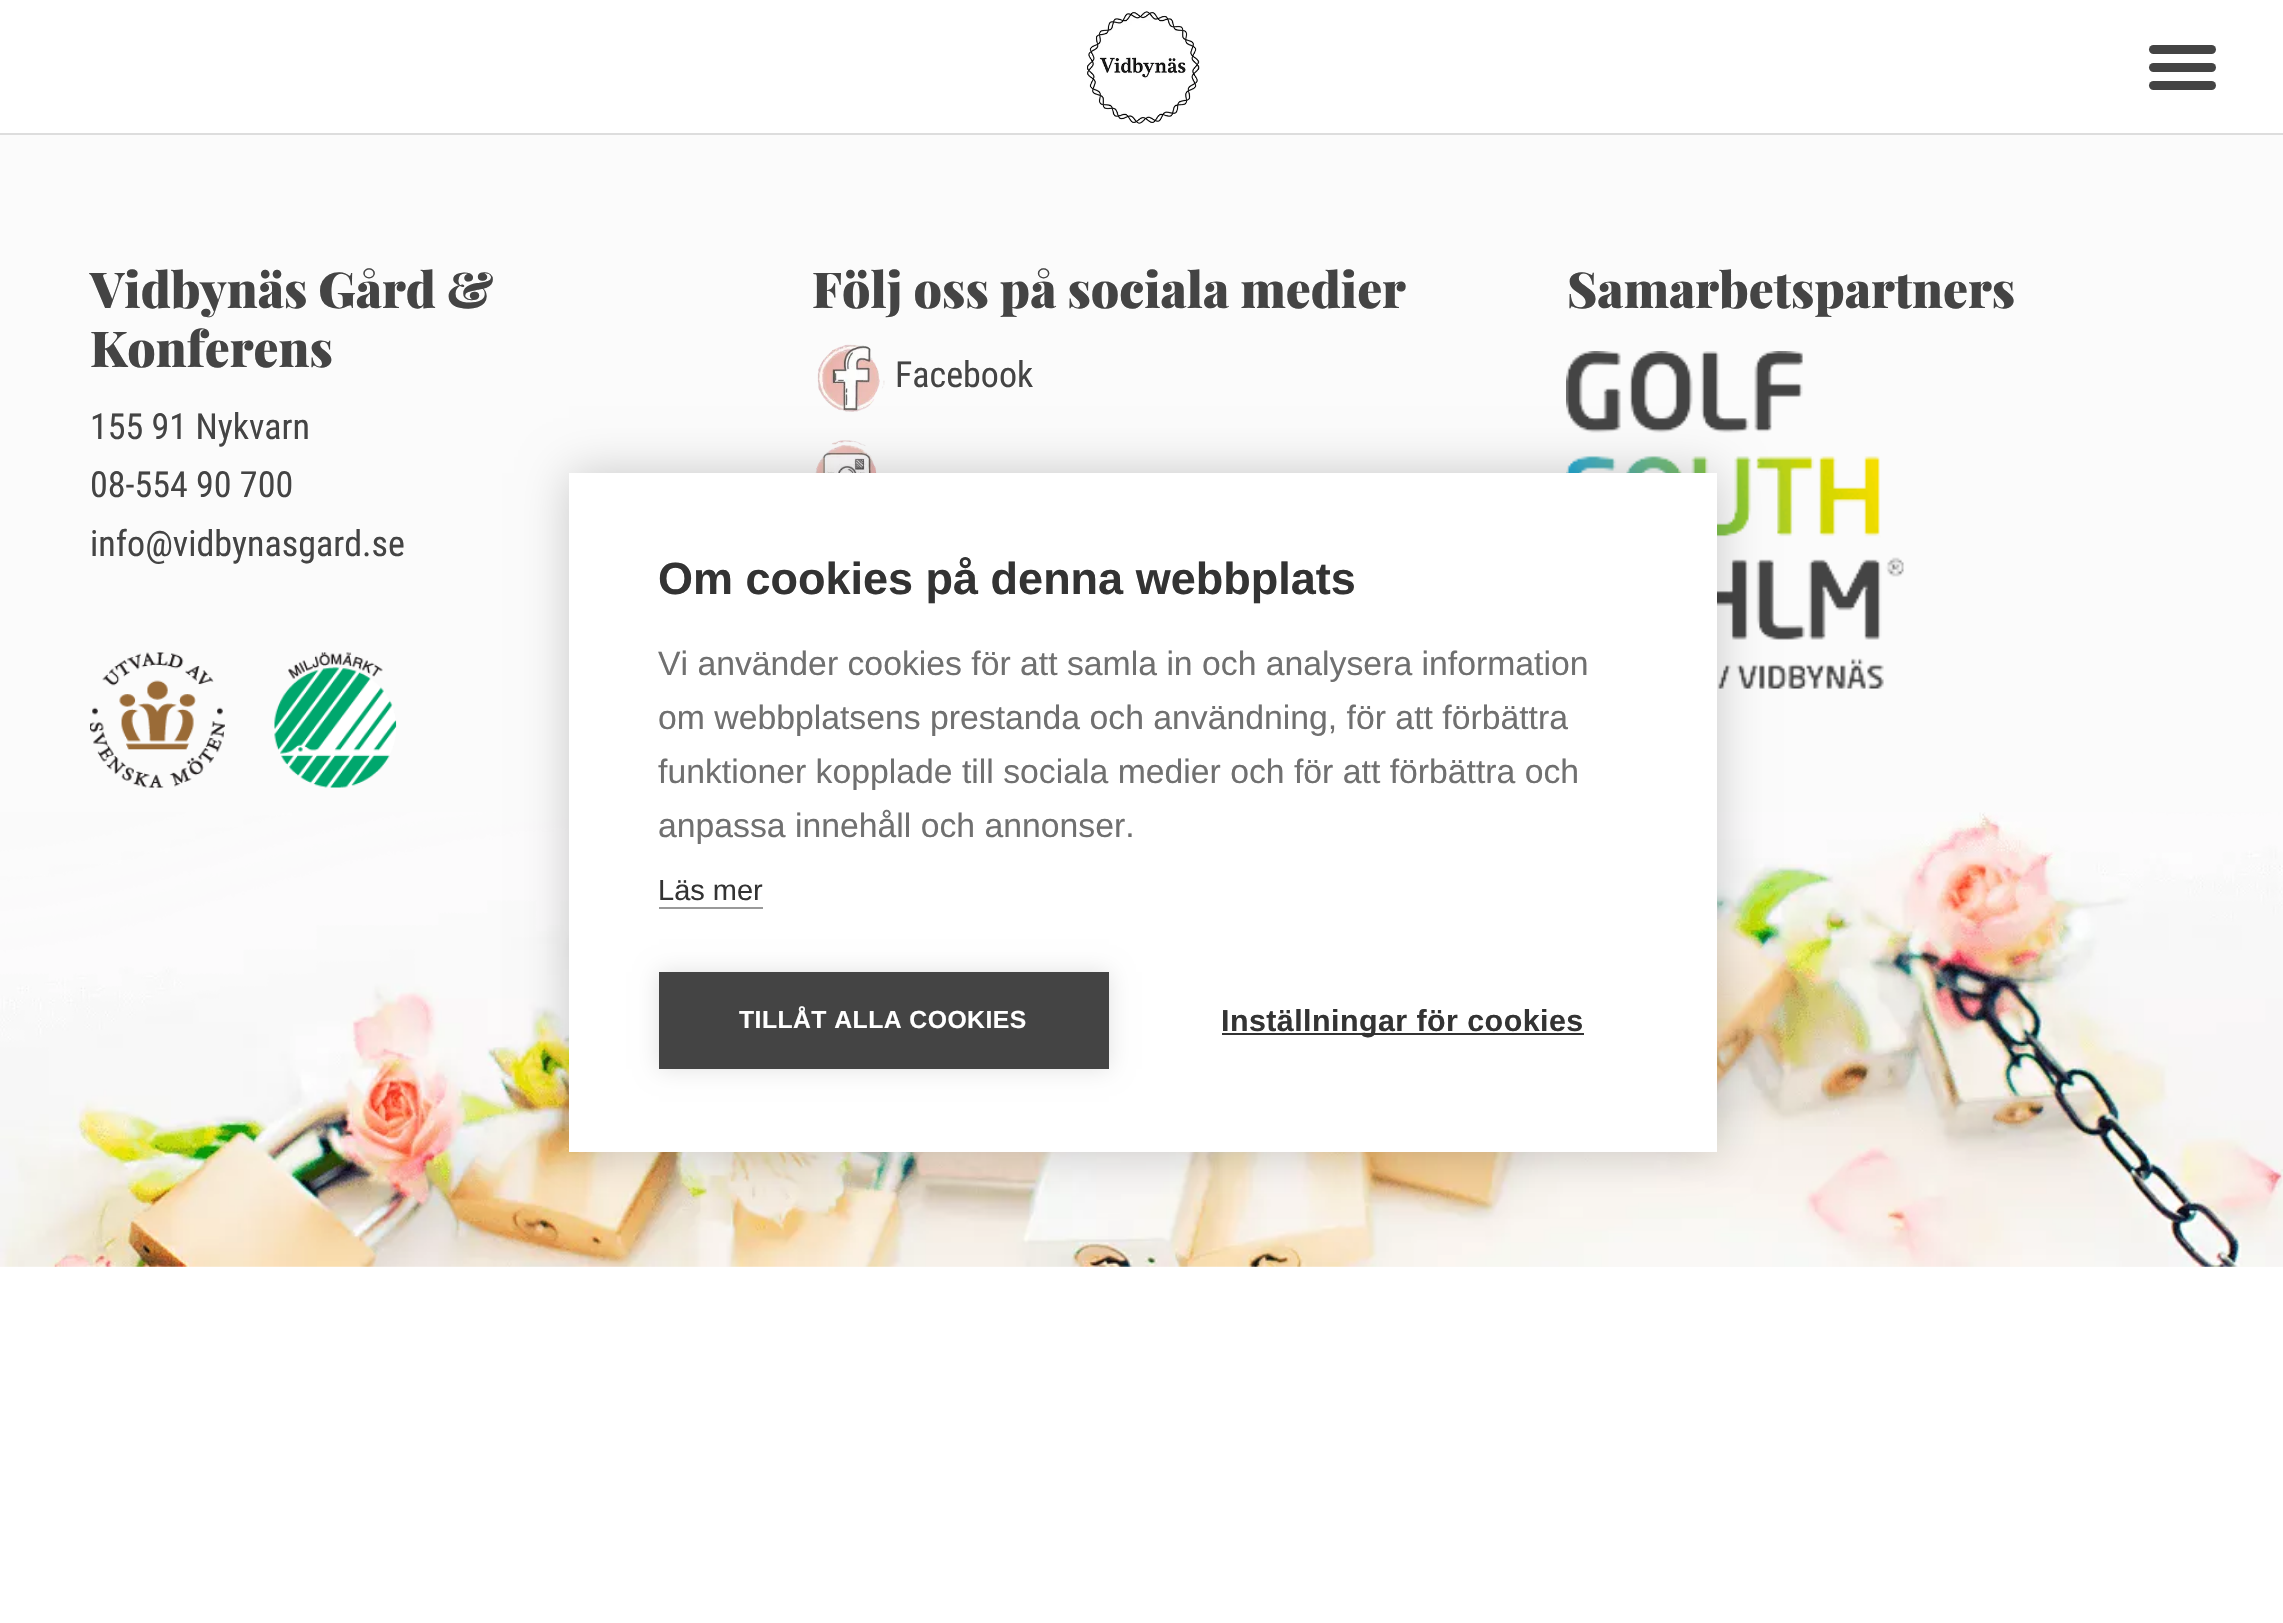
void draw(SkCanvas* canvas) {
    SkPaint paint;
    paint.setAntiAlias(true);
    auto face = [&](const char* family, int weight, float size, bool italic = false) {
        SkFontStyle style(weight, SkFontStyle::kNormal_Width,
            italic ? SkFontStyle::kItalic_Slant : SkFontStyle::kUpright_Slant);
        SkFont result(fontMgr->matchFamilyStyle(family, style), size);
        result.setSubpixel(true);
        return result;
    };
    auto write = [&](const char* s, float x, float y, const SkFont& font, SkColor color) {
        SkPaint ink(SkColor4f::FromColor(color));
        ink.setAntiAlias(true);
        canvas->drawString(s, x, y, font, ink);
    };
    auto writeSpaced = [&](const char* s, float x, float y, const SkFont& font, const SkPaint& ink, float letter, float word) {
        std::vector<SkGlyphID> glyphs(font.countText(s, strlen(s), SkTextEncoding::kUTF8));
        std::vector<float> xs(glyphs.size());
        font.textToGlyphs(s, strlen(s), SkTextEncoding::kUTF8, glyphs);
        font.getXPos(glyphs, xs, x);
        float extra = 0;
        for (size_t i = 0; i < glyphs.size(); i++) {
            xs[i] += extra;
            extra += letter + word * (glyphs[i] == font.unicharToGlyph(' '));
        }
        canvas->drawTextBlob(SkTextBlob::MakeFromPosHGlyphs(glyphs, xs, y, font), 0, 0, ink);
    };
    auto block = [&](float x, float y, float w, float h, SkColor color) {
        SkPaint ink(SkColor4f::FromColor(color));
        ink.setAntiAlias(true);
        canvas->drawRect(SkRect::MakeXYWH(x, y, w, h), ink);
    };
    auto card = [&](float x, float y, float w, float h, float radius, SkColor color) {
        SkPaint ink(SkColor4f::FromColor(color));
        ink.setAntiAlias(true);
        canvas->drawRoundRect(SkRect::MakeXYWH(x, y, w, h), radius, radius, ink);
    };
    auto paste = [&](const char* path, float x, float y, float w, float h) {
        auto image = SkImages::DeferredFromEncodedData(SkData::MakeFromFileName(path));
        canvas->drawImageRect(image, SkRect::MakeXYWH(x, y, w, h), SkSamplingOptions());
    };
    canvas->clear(SK_ColorWHITE);
    block(0, 133, 2283, 2, SkColorSetRGB(221, 221, 221));
    paste("pic1.png", 1087, 11, 113, 113);
    card(2149, 45, 67, 9, 4.5f, SkColorSetRGB(68, 68, 68));
    card(2149, 63, 67, 9, 4.5f, SkColorSetRGB(68, 68, 68));
    card(2149, 81, 67, 9, 4.5f, SkColorSetRGB(68, 68, 68));
    block(0, 135, 2283, 1132, SkColorSetRGB(251, 251, 251));
    paste("pic2.png", 0, 812, 2283, 455);
    auto kFont1 = face("Playfair Display", 900, 49.5f);
    write("Vidbynäs Gård &", 90, 308, kFont1, SkColorSetRGB(68, 68, 68));
    write("Konferens", 90, 367, kFont1, SkColorSetRGB(68, 68, 68));
    auto kFont2 = face("Roboto Condensed", 400, 36);
    write("155 91 Nykvarn", 90, 439, kFont2, SkColorSetRGB(68, 68, 68));
    write("08-554 90 700", 90, 497, kFont2, SkColorSetRGB(68, 68, 68));
    write("info@vidbynasgard.se", 90, 556, kFont2, SkColorSetRGB(68, 68, 68));
    paste("pic3.png", 90, 652, 135, 136);
    paste("pic4.png", 274, 652, 123, 136);
    write("Följ oss på sociala medier", 812, 308, kFont1, SkColorSetRGB(68, 68, 68));
    paste("pic5.png", 817, 344, 68, 68);
    write("Facebook", 895, 387, kFont2, SkColorSetRGB(68, 68, 68));
    paste("pic6.png", 815, 440, 62, 33);
    write("Samarbetspartners", 1567, 308, kFont1, SkColorSetRGB(68, 68, 68));
    paste("pic7.png", 1566, 351, 338, 338);
    paint.setColor(SkColorSetARGB(51, 0, 0, 0));
    paint.setMaskFilter(SkMaskFilter::MakeBlur(kNormal_SkBlurStyle, 22.5f));
    canvas->drawRect(SkRect::MakeXYWH(569, 473, 1148, 679), paint);
    paint.setMaskFilter(nullptr);
    block(569, 473, 1148, 679, SK_ColorWHITE);
    auto kFont3 = face("Liberation Sans", 700, 45);
    write("Om cookies på denna webbplats", 658, 594, kFont3, SkColorSetRGB(51, 51, 51));
    auto kFont4 = face("Liberation Sans", 400, 33.75f);
    write("Vi använder cookies för att samla in och analysera information", 658, 675, kFont4, SkColorSetRGB(112, 112, 112));
    write("om webbplatsens prestanda och användning, för att förbättra", 658, 729, kFont4, SkColorSetRGB(112, 112, 112));
    write("funktioner kopplade till sociala medier och för att förbättra och", 658, 783, kFont4, SkColorSetRGB(112, 112, 112));
    write("anpassa innehåll och annonser.", 658, 837, kFont4, SkColorSetRGB(112, 112, 112));
    auto kFont5 = face("Liberation Sans", 400, 29);
    write("Läs mer", 658, 900, kFont5, SkColorSetRGB(51, 51, 51));
    block(659, 907, 104, 2, SkColorSetRGB(153, 153, 153));
    paint.setColor(SkColorSetARGB(31, 0, 0, 0));
    paint.setMaskFilter(SkMaskFilter::MakeBlur(kNormal_SkBlurStyle, 11));
    canvas->drawRect(SkRect::MakeXYWH(659, 972, 450, 97), paint);
    paint.setMaskFilter(nullptr);
    block(659, 972, 450, 97, SkColorSetRGB(68, 68, 68));
    auto kFont6 = face("Liberation Sans", 700, 24.75f);
    paint.setColor(SK_ColorWHITE);
    writeSpaced("TILLÅT ALLA COOKIES", 739, 1028, kFont6, paint, 0.45f, 0);
    block(1222, 1033, 362, 2, SkColorSetRGB(51, 51, 51));
    auto kFont7 = face("Liberation Sans", 700, 30.4f);
    paint.setColor(SkColorSetRGB(51, 51, 51));
    writeSpaced("Inställningar för cookies", 1221, 1031, kFont7, paint, 0.45f, 0);
}
